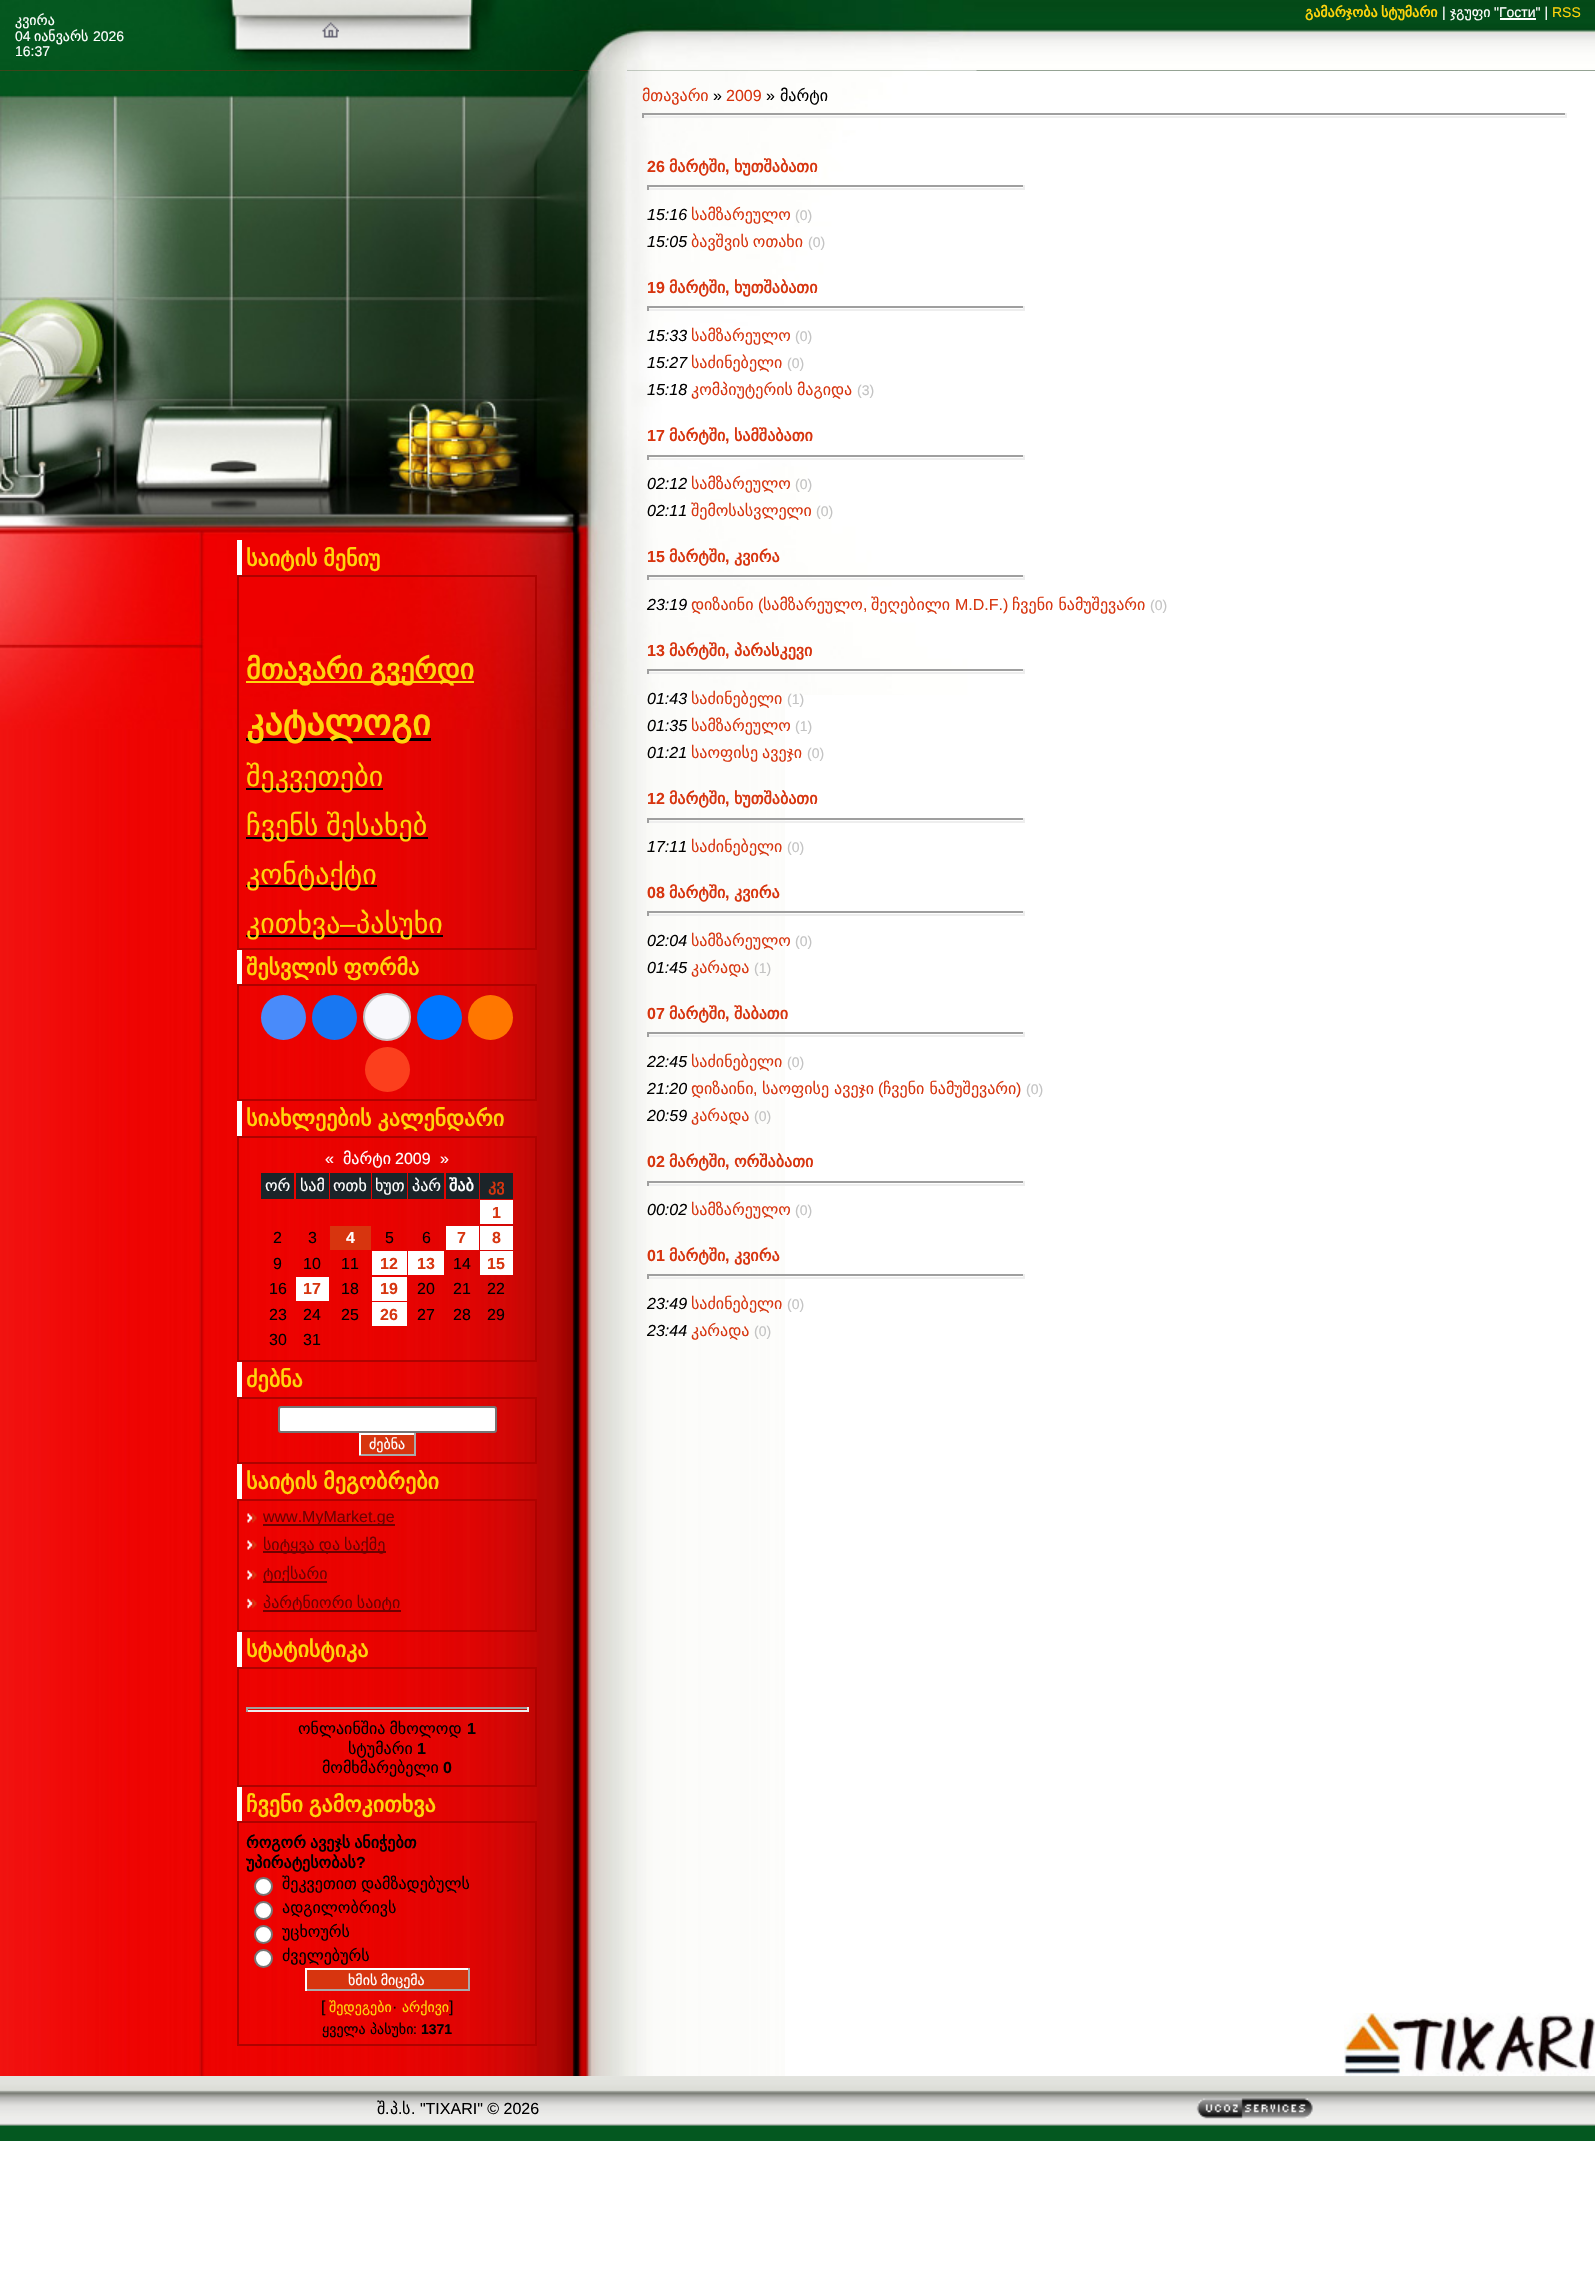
void draw(SkCanvas* canvas) {
    SkPaint paint;
    paint.setAntiAlias(true);
    auto face = [&](const char* family, int weight, float size, bool italic = false) {
        SkFontStyle style(weight, SkFontStyle::kNormal_Width,
            italic ? SkFontStyle::kItalic_Slant : SkFontStyle::kUpright_Slant);
        SkFont result(fontMgr->matchFamilyStyle(family, style), size);
        result.setSubpixel(true);
        return result;
    };
    auto write = [&](const char* s, float x, float y, const SkFont& font, SkColor color) {
        SkPaint ink(SkColor4f::FromColor(color));
        ink.setAntiAlias(true);
        canvas->drawString(s, x, y, font, ink);
    };
    auto writeSpaced = [&](const char* s, float x, float y, const SkFont& font, const SkPaint& ink, float letter, float word) {
        std::vector<SkGlyphID> glyphs(font.countText(s, strlen(s), SkTextEncoding::kUTF8));
        std::vector<float> xs(glyphs.size());
        font.textToGlyphs(s, strlen(s), SkTextEncoding::kUTF8, glyphs);
        font.getXPos(glyphs, xs, x);
        float extra = 0;
        for (size_t i = 0; i < glyphs.size(); i++) {
            xs[i] += extra;
            extra += letter + word * (glyphs[i] == font.unicharToGlyph(' '));
        }
        canvas->drawTextBlob(SkTextBlob::MakeFromPosHGlyphs(glyphs, xs, y, font), 0, 0, ink);
    };
    auto block = [&](float x, float y, float w, float h, SkColor color) {
        SkPaint ink(SkColor4f::FromColor(color));
        ink.setAntiAlias(true);
        canvas->drawRect(SkRect::MakeXYWH(x, y, w, h), ink);
    };
    auto paste = [&](const char* path, float x, float y, float w, float h) {
        auto image = SkImages::DeferredFromEncodedData(SkData::MakeFromFileName(path));
        canvas->drawImageRect(image, SkRect::MakeXYWH(x, y, w, h), SkSamplingOptions());
    };
    canvas->clear(SK_ColorWHITE);
    paste("pic1.png", 0, 70, 785, 2006);
    paste("pic2.png", 1344, 2013, 251, 63);
    paste("pic3.png", 0, 0, 627, 71);
    auto kFont1 = face("DejaVu Sans", 400, 14);
    write("კვირა", 15, 25, kFont1, SK_ColorWHITE);
    auto kFont2 = face("Liberation Sans", 400, 14);
    write("04", 15, 41, kFont2, SK_ColorWHITE);
    write("იანვარს", 34, 41, kFont1, SK_ColorWHITE);
    write("2026", 93, 41, kFont2, SK_ColorWHITE);
    write("16:37", 15, 56, kFont2, SK_ColorWHITE);
    paste("pic4.png", 322, 22, 17, 16);
    block(627, 70, 968, 1, SkColorSetRGB(43, 71, 44));
    paste("pic5.png", 627, 0, 968, 71);
    auto kFont3 = face("DejaVu Sans", 700, 14);
    paint.setColor(SkColorSetRGB(255, 212, 12));
    writeSpaced("გამარჯობა სტუმარი", 1305, 17, kFont3, paint, 0, -1);
    write("|", 1442, 17, kFont2, SK_ColorWHITE);
    write("ჯგუფი", 1450, 17, kFont1, SK_ColorWHITE);
    write("\"Гости\" |", 1494, 17, kFont2, SK_ColorWHITE);
    write("RSS", 1552, 17, kFont2, SkColorSetRGB(255, 212, 12));
    block(1500, 18, 36, 2, SK_ColorWHITE);
    paste("pic6.png", 0, 70, 627, 296);
    paste("pic7.png", 0, 366, 627, 174);
    paste("pic8.png", 0, 540, 627, 189);
    block(237, 540, 5, 35, SK_ColorWHITE);
    auto kFont4 = face("DejaVu Sans", 700, 22);
    writeSpaced("საიტის მენიუ", 246, 566, kFont4, paint, 0, -1);
    paint.setStyle(SkPaint::kStroke_Style);
    paint.setStrokeWidth(2);
    paint.setColor(SkColorSetRGB(174, 2, 0));
    canvas->drawRect(SkRect::MakeXYWH(238, 576, 298, 373), paint);
    block(246, 681, 228, 2, SkColorSetRGB(255, 212, 12));
    auto kFont5 = face("DejaVu Sans", 700, 28);
    paint.setStyle(SkPaint::kFill_Style);
    paint.setColor(SkColorSetRGB(255, 212, 12));
    writeSpaced("მთავარი გვერდი", 246, 679, kFont5, paint, 0, -2);
    block(246, 738, 185, 3, SK_ColorBLACK);
    auto kFont6 = face("DejaVu Sans", 700, 36);
    write("კატალოგი", 246, 735, kFont6, SkColorSetRGB(255, 212, 12));
    block(246, 788, 137, 2, SK_ColorBLACK);
    auto kFont7 = face("DejaVu Sans", 400, 28);
    write("შეკვეთები", 246, 786, kFont7, SkColorSetRGB(255, 212, 12));
    block(246, 837, 182, 2, SK_ColorBLACK);
    writeSpaced("ჩვენს შესახებ", 246, 835, kFont7, paint, 0, -1);
    block(246, 885, 131, 2, SK_ColorBLACK);
    write("კონტაქტი", 246, 884, kFont7, SkColorSetRGB(255, 212, 12));
    block(246, 935, 197, 2, SK_ColorBLACK);
    write("კითხვა", 246, 933, kFont7, SkColorSetRGB(255, 212, 12));
    auto kFont8 = face("Liberation Sans", 400, 28);
    write("–", 340, 933, kFont8, SkColorSetRGB(255, 212, 12));
    write("პასუხი", 356, 933, kFont7, SkColorSetRGB(255, 212, 12));
    block(237, 950, 5, 34, SK_ColorWHITE);
    writeSpaced("შესვლის ფორმა", 246, 975, kFont4, paint, 0, -1);
    paint.setStyle(SkPaint::kStroke_Style);
    paint.setColor(SkColorSetRGB(174, 2, 0));
    canvas->drawRect(SkRect::MakeXYWH(238, 985, 298, 115), paint);
    paint.setStyle(SkPaint::kFill_Style);
    paint.setColor(SkColorSetRGB(73, 139, 250));
    canvas->drawCircle(283.5f, 1017.5f, 22.5f, paint);
    paint.setColor(SkColorSetRGB(24, 119, 242));
    canvas->drawCircle(334.5f, 1017.5f, 22.5f, paint);
    paint.setColor(SkColorSetRGB(248, 248, 252));
    canvas->drawCircle(387, 1017, 23, paint);
    paint.setStyle(SkPaint::kStroke_Style);
    paint.setColor(SkColorSetRGB(196, 196, 196));
    canvas->drawCircle(387, 1017, 23, paint);
    paint.setStyle(SkPaint::kFill_Style);
    paint.setColor(SkColorSetRGB(0, 119, 255));
    canvas->drawCircle(439.5f, 1017.5f, 22.5f, paint);
    paint.setColor(SkColorSetRGB(255, 119, 0));
    canvas->drawCircle(490.5f, 1017.5f, 22.5f, paint);
    paint.setColor(SkColorSetRGB(252, 63, 29));
    canvas->drawCircle(387.5f, 1069.5f, 22.5f, paint);
    block(237, 1101, 5, 35, SK_ColorWHITE);
    paint.setColor(SkColorSetRGB(255, 212, 12));
    writeSpaced("სიახლეების კალენდარი", 246, 1126, kFont4, paint, 0, -1);
    paint.setStyle(SkPaint::kStroke_Style);
    paint.setColor(SkColorSetRGB(174, 2, 0));
    canvas->drawRect(SkRect::MakeXYWH(238, 1137, 298, 224), paint);
    auto kFont9 = face("Liberation Sans", 400, 16);
    write("«", 325, 1164, kFont9, SK_ColorWHITE);
    auto kFont10 = face("DejaVu Sans", 400, 16);
    write("მარტი", 343, 1164, kFont10, SK_ColorWHITE);
    write("2009", 395, 1164, kFont9, SK_ColorWHITE);
    write("»", 440, 1164, kFont9, SK_ColorWHITE);
    block(261, 1173, 33, 26, SkColorSetRGB(27, 36, 41));
    write("ორ", 265, 1191, kFont10, SK_ColorWHITE);
    block(296, 1173, 33, 26, SkColorSetRGB(27, 36, 41));
    write("სამ", 300, 1191, kFont10, SK_ColorWHITE);
    block(330, 1173, 41, 26, SkColorSetRGB(27, 36, 41));
    write("ოთხ", 333, 1191, kFont10, SK_ColorWHITE);
    block(372, 1173, 35, 26, SkColorSetRGB(27, 36, 41));
    write("ხუთ", 375, 1191, kFont10, SK_ColorWHITE);
    block(408, 1173, 36, 26, SkColorSetRGB(27, 36, 41));
    write("პარ", 412, 1191, kFont10, SK_ColorWHITE);
    block(446, 1173, 33, 26, SkColorSetRGB(27, 36, 41));
    auto kFont11 = face("DejaVu Sans", 700, 16);
    write("შაბ", 449, 1191, kFont11, SK_ColorWHITE);
    block(480, 1173, 33, 26, SkColorSetRGB(27, 36, 41));
    write("კვ", 488, 1191, kFont11, SkColorSetRGB(215, 53, 15));
    block(480, 1200, 33, 24, SK_ColorWHITE);
    auto kFont12 = face("Liberation Sans", 700, 16);
    write("1", 492, 1218, kFont12, SkColorSetRGB(215, 53, 15));
    write("2", 273, 1243, kFont9, SK_ColorBLACK);
    write("3", 308, 1243, kFont9, SK_ColorBLACK);
    block(330, 1226, 41, 24, SkColorSetRGB(215, 53, 15));
    write("4", 346, 1243, kFont12, SK_ColorWHITE);
    write("5", 385, 1243, kFont9, SK_ColorBLACK);
    write("6", 422, 1243, kFont9, SK_ColorBLACK);
    block(446, 1226, 33, 24, SK_ColorWHITE);
    write("7", 457, 1243, kFont12, SkColorSetRGB(215, 53, 15));
    block(480, 1226, 33, 24, SK_ColorWHITE);
    write("8", 492, 1243, kFont12, SkColorSetRGB(215, 53, 15));
    write("9", 273, 1269, kFont9, SK_ColorBLACK);
    write("10", 303, 1269, kFont9, SK_ColorBLACK);
    write("11", 341, 1269, kFont9, SK_ColorBLACK);
    block(372, 1251, 35, 24, SK_ColorWHITE);
    write("12", 380, 1269, kFont12, SkColorSetRGB(215, 53, 15));
    block(408, 1251, 36, 24, SK_ColorWHITE);
    write("13", 417, 1269, kFont12, SkColorSetRGB(215, 53, 15));
    write("14", 453, 1269, kFont9, SK_ColorBLACK);
    block(480, 1251, 33, 24, SK_ColorWHITE);
    write("15", 487, 1269, kFont12, SkColorSetRGB(215, 53, 15));
    write("16", 269, 1294, kFont9, SK_ColorBLACK);
    block(296, 1277, 33, 24, SK_ColorWHITE);
    write("17", 303, 1294, kFont12, SkColorSetRGB(215, 53, 15));
    write("18", 341, 1294, kFont9, SK_ColorBLACK);
    block(372, 1277, 35, 24, SK_ColorWHITE);
    write("19", 380, 1294, kFont12, SkColorSetRGB(215, 53, 15));
    write("20", 417, 1294, kFont9, SK_ColorBLACK);
    write("21", 453, 1294, kFont9, SK_ColorBLACK);
    write("22", 487, 1294, kFont9, SK_ColorBLACK);
    write("23", 269, 1320, kFont9, SK_ColorBLACK);
    write("24", 303, 1320, kFont9, SK_ColorBLACK);
    write("25", 341, 1320, kFont9, SK_ColorBLACK);
    block(372, 1302, 35, 24, SK_ColorWHITE);
    write("26", 380, 1320, kFont12, SkColorSetRGB(215, 53, 15));
    write("27", 417, 1320, kFont9, SK_ColorBLACK);
    write("28", 453, 1320, kFont9, SK_ColorBLACK);
    write("29", 487, 1320, kFont9, SK_ColorBLACK);
    write("30", 269, 1345, kFont9, SK_ColorBLACK);
    write("31", 303, 1345, kFont9, SK_ColorBLACK);
    block(237, 1362, 5, 35, SK_ColorWHITE);
    write("ძებნა", 246, 1387, kFont4, SkColorSetRGB(255, 212, 12));
    canvas->drawRect(SkRect::MakeXYWH(238, 1398, 298, 65), paint);
    paint.setStyle(SkPaint::kFill_Style);
    paint.setColor(SK_ColorWHITE);
    canvas->drawRoundRect(SkRect::MakeXYWH(279, 1407, 217, 25), 2, 2, paint);
    paint.setStyle(SkPaint::kStroke_Style);
    paint.setColor(SkColorSetRGB(118, 118, 118));
    canvas->drawRoundRect(SkRect::MakeXYWH(279, 1407, 217, 25), 2, 2, paint);
    block(361, 1435, 53, 19, SkColorSetRGB(215, 53, 15));
    block(359, 1433, 57, 2, SK_ColorWHITE);
    block(414, 1433, 2, 22, SkColorSetRGB(170, 170, 170));
    block(359, 1454, 57, 2, SkColorSetRGB(170, 170, 170));
    block(359, 1433, 2, 22, SK_ColorWHITE);
    write("ძებნა", 369, 1449, kFont1, SK_ColorWHITE);
    block(237, 1464, 5, 35, SK_ColorWHITE);
    paint.setStyle(SkPaint::kFill_Style);
    paint.setColor(SkColorSetRGB(255, 212, 12));
    writeSpaced("საიტის მეგობრები", 246, 1489, kFont4, paint, 0, -1);
    paint.setStyle(SkPaint::kStroke_Style);
    paint.setColor(SkColorSetRGB(174, 2, 0));
    canvas->drawRect(SkRect::MakeXYWH(238, 1500, 298, 131), paint);
    paste("pic9.png", 247, 1513, 10, 10);
    block(263, 1524, 132, 2, SkColorSetRGB(109, 1, 0));
    write("www.MyMarket.ge", 263, 1522, kFont9, SkColorSetRGB(109, 1, 0));
    paste("pic9.png", 247, 1540, 10, 10);
    block(263, 1551, 123, 2, SkColorSetRGB(109, 1, 0));
    paint.setStyle(SkPaint::kFill_Style);
    paint.setColor(SkColorSetRGB(109, 1, 0));
    writeSpaced("სიტყვა და საქმე", 263, 1550, kFont10, paint, 0, -1);
    paste("pic9.png", 247, 1570, 10, 10);
    block(263, 1581, 64, 2, SkColorSetRGB(109, 1, 0));
    write("ტიქსარი", 263, 1579, kFont10, SkColorSetRGB(109, 1, 0));
    paste("pic10.png", 247, 1598, 10, 11);
    block(263, 1610, 138, 2, SkColorSetRGB(109, 1, 0));
    writeSpaced("პარტნიორი საიტი", 263, 1608, kFont10, paint, 0, -1);
    block(237, 1632, 5, 35, SK_ColorWHITE);
    write("სტატისტიკა", 246, 1657, kFont4, SkColorSetRGB(255, 212, 12));
    paint.setStyle(SkPaint::kStroke_Style);
    paint.setColor(SkColorSetRGB(174, 2, 0));
    canvas->drawRect(SkRect::MakeXYWH(238, 1668, 298, 118), paint);
    block(246, 1707, 282, 2, SkColorSetRGB(159, 159, 159));
    block(527, 1707, 2, 5, SkColorSetRGB(238, 238, 238));
    block(246, 1710, 282, 2, SkColorSetRGB(238, 238, 238));
    block(246, 1707, 2, 5, SkColorSetRGB(159, 159, 159));
    paint.setStyle(SkPaint::kFill_Style);
    paint.setColor(SK_ColorBLACK);
    writeSpaced("ონლაინშია მხოლოდ", 298, 1734, kFont10, paint, 0, -1);
    write("1", 467, 1734, kFont12, SK_ColorBLACK);
    write("სტუმარი", 348, 1754, kFont10, SK_ColorBLACK);
    write("1", 417, 1754, kFont12, SK_ColorBLACK);
    write("მომხმარებელი", 322, 1773, kFont10, SK_ColorBLACK);
    write("0", 443, 1773, kFont12, SK_ColorBLACK);
    block(237, 1787, 5, 34, SK_ColorWHITE);
    paint.setColor(SkColorSetRGB(255, 212, 12));
    writeSpaced("ჩვენი გამოკითხვა", 246, 1812, kFont4, paint, 0, -1);
    paint.setStyle(SkPaint::kStroke_Style);
    paint.setColor(SkColorSetRGB(174, 2, 0));
    canvas->drawRect(SkRect::MakeXYWH(238, 1822, 298, 223), paint);
    paint.setStyle(SkPaint::kFill_Style);
    paint.setColor(SK_ColorBLACK);
    writeSpaced("როგორ ავეჯს ანიჭებთ", 246, 1848, kFont11, paint, 0, -1);
    write("უპირატესობას", 246, 1868, kFont11, SK_ColorBLACK);
    write("?", 356, 1868, kFont12, SK_ColorBLACK);
    paint.setColor(SK_ColorWHITE);
    canvas->drawCircle(263.5f, 1886.5f, 8.5f, paint);
    paint.setStyle(SkPaint::kStroke_Style);
    paint.setColor(SkColorSetRGB(118, 118, 118));
    canvas->drawCircle(263.5f, 1886.5f, 8.5f, paint);
    paint.setStyle(SkPaint::kFill_Style);
    paint.setColor(SK_ColorBLACK);
    writeSpaced("შეკვეთით დამზადებულს", 282, 1889, kFont10, paint, 0, -1);
    paint.setColor(SK_ColorWHITE);
    canvas->drawCircle(263.5f, 1910.5f, 8.5f, paint);
    paint.setStyle(SkPaint::kStroke_Style);
    paint.setColor(SkColorSetRGB(118, 118, 118));
    canvas->drawCircle(263.5f, 1910.5f, 8.5f, paint);
    write("ადგილობრივს", 282, 1913, kFont10, SK_ColorBLACK);
    paint.setStyle(SkPaint::kFill_Style);
    paint.setColor(SK_ColorWHITE);
    canvas->drawCircle(263.5f, 1934.5f, 8.5f, paint);
    paint.setStyle(SkPaint::kStroke_Style);
    paint.setColor(SkColorSetRGB(118, 118, 118));
    canvas->drawCircle(263.5f, 1934.5f, 8.5f, paint);
    write("უცხოურს", 282, 1937, kFont10, SK_ColorBLACK);
    paint.setStyle(SkPaint::kFill_Style);
    paint.setColor(SK_ColorWHITE);
    canvas->drawCircle(263.5f, 1958.5f, 8.5f, paint);
    paint.setStyle(SkPaint::kStroke_Style);
    paint.setColor(SkColorSetRGB(118, 118, 118));
    canvas->drawCircle(263.5f, 1958.5f, 8.5f, paint);
    write("ძველებურს", 282, 1961, kFont10, SK_ColorBLACK);
    block(307, 1970, 161, 19, SkColorSetRGB(215, 53, 15));
    block(305, 1968, 165, 2, SK_ColorWHITE);
    block(468, 1968, 2, 23, SkColorSetRGB(170, 170, 170));
    block(305, 1989, 165, 2, SkColorSetRGB(170, 170, 170));
    block(305, 1968, 2, 23, SK_ColorWHITE);
    paint.setStyle(SkPaint::kFill_Style);
    paint.setColor(SK_ColorWHITE);
    writeSpaced("ხმის მიცემა", 348, 1985, kFont1, paint, 0, -1);
    write("[", 321, 2012, kFont9, SK_ColorBLACK);
    write("შედეგები", 329, 2012, kFont1, SkColorSetRGB(255, 212, 12));
    write("·", 392, 2012, kFont9, SK_ColorBLACK);
    write("არქივი", 402, 2012, kFont1, SkColorSetRGB(255, 212, 12));
    write("]", 449, 2012, kFont9, SK_ColorBLACK);
    write("ყველა პასუხი", 322, 2034, kFont1, SK_ColorBLACK);
    write(":", 413, 2034, kFont2, SK_ColorBLACK);
    auto kFont13 = face("Liberation Sans", 700, 14);
    write("1371", 421, 2034, kFont13, SK_ColorBLACK);
    paste("pic11.png", 627, 70, 350, 625);
    write("მთავარი", 642, 101, kFont10, SkColorSetRGB(215, 53, 15));
    write("»", 713, 101, kFont9, SK_ColorBLACK);
    write("2009", 726, 101, kFont9, SkColorSetRGB(215, 53, 15));
    write("»", 766, 101, kFont9, SK_ColorBLACK);
    write("მარტი", 780, 101, kFont10, SK_ColorBLACK);
    block(642, 113, 924, 2, SkColorSetRGB(159, 159, 159));
    block(1565, 113, 2, 5, SkColorSetRGB(238, 238, 238));
    block(642, 116, 924, 2, SkColorSetRGB(238, 238, 238));
    block(642, 113, 2, 5, SkColorSetRGB(159, 159, 159));
    write("26", 647, 172, kFont12, SkColorSetRGB(215, 53, 15));
    write("მარტში", 669, 172, kFont11, SkColorSetRGB(215, 53, 15));
    write(",", 725, 172, kFont12, SkColorSetRGB(215, 53, 15));
    write("ხუთშაბათი", 734, 172, kFont11, SkColorSetRGB(215, 53, 15));
    block(647, 185, 378, 2, SkColorSetRGB(159, 159, 159));
    block(1023, 185, 2, 5, SkColorSetRGB(238, 238, 238));
    block(647, 188, 378, 2, SkColorSetRGB(238, 238, 238));
    block(647, 185, 2, 5, SkColorSetRGB(159, 159, 159));
    auto kFont14 = face("Liberation Sans", 400, 16, true);
    write("15:16", 647, 220, kFont14, SK_ColorBLACK);
    write("სამზარეულო", 691, 220, kFont10, SkColorSetRGB(215, 53, 15));
    write("(0)", 795, 220, kFont2, SkColorSetRGB(195, 195, 195));
    write("15:05", 647, 247, kFont14, SK_ColorBLACK);
    paint.setColor(SkColorSetRGB(215, 53, 15));
    writeSpaced("ბავშვის ოთახი", 691, 247, kFont10, paint, 0, -1);
    write("(0)", 808, 247, kFont2, SkColorSetRGB(195, 195, 195));
    write("19", 647, 293, kFont12, SkColorSetRGB(215, 53, 15));
    write("მარტში", 669, 293, kFont11, SkColorSetRGB(215, 53, 15));
    write(",", 725, 293, kFont12, SkColorSetRGB(215, 53, 15));
    write("ხუთშაბათი", 734, 293, kFont11, SkColorSetRGB(215, 53, 15));
    block(647, 306, 378, 2, SkColorSetRGB(159, 159, 159));
    block(1023, 306, 2, 5, SkColorSetRGB(238, 238, 238));
    block(647, 309, 378, 2, SkColorSetRGB(238, 238, 238));
    block(647, 306, 2, 5, SkColorSetRGB(159, 159, 159));
    write("15:33", 647, 341, kFont14, SK_ColorBLACK);
    write("სამზარეულო", 691, 341, kFont10, SkColorSetRGB(215, 53, 15));
    write("(0)", 795, 341, kFont2, SkColorSetRGB(195, 195, 195));
    write("15:27", 647, 368, kFont14, SK_ColorBLACK);
    write("საძინებელი", 691, 368, kFont10, SkColorSetRGB(215, 53, 15));
    write("(0)", 787, 368, kFont2, SkColorSetRGB(195, 195, 195));
    write("15:18", 647, 395, kFont14, SK_ColorBLACK);
    writeSpaced("კომპიუტერის მაგიდა", 691, 395, kFont10, paint, 0, -1);
    write("(3)", 857, 395, kFont2, SkColorSetRGB(195, 195, 195));
    write("17", 647, 441, kFont12, SkColorSetRGB(215, 53, 15));
    write("მარტში", 669, 441, kFont11, SkColorSetRGB(215, 53, 15));
    write(",", 725, 441, kFont12, SkColorSetRGB(215, 53, 15));
    write("სამშაბათი", 734, 441, kFont11, SkColorSetRGB(215, 53, 15));
    block(647, 455, 378, 2, SkColorSetRGB(159, 159, 159));
    block(1023, 455, 2, 5, SkColorSetRGB(238, 238, 238));
    block(647, 458, 378, 2, SkColorSetRGB(238, 238, 238));
    block(647, 455, 2, 5, SkColorSetRGB(159, 159, 159));
    write("02:12", 647, 489, kFont14, SK_ColorBLACK);
    write("სამზარეულო", 691, 489, kFont10, SkColorSetRGB(215, 53, 15));
    write("(0)", 795, 489, kFont2, SkColorSetRGB(195, 195, 195));
    write("02:11", 647, 516, kFont14, SK_ColorBLACK);
    write("შემოსასვლელი", 691, 516, kFont10, SkColorSetRGB(215, 53, 15));
    write("(0)", 816, 516, kFont2, SkColorSetRGB(195, 195, 195));
    write("15", 647, 562, kFont12, SkColorSetRGB(215, 53, 15));
    write("მარტში", 669, 562, kFont11, SkColorSetRGB(215, 53, 15));
    write(",", 725, 562, kFont12, SkColorSetRGB(215, 53, 15));
    write("კვირა", 734, 562, kFont11, SkColorSetRGB(215, 53, 15));
    block(647, 575, 378, 2, SkColorSetRGB(159, 159, 159));
    block(1023, 575, 2, 5, SkColorSetRGB(238, 238, 238));
    block(647, 578, 378, 2, SkColorSetRGB(238, 238, 238));
    block(647, 575, 2, 5, SkColorSetRGB(159, 159, 159));
    write("23:19", 647, 610, kFont14, SK_ColorBLACK);
    write("დიზაინი", 691, 610, kFont10, SkColorSetRGB(215, 53, 15));
    write("(", 758, 610, kFont9, SkColorSetRGB(215, 53, 15));
    write("სამზარეულო", 763, 610, kFont10, SkColorSetRGB(215, 53, 15));
    write(",", 863, 610, kFont9, SkColorSetRGB(215, 53, 15));
    write("შეღებილი", 871, 610, kFont10, SkColorSetRGB(215, 53, 15));
    write("M.D.F.)", 955, 610, kFont9, SkColorSetRGB(215, 53, 15));
    write("ჩვენი ნამუშევარი", 1012, 610, kFont10, SkColorSetRGB(215, 53, 15));
    write("(0)", 1150, 610, kFont2, SkColorSetRGB(195, 195, 195));
    write("13", 647, 656, kFont12, SkColorSetRGB(215, 53, 15));
    write("მარტში", 669, 656, kFont11, SkColorSetRGB(215, 53, 15));
    write(",", 725, 656, kFont12, SkColorSetRGB(215, 53, 15));
    write("პარასკევი", 734, 656, kFont11, SkColorSetRGB(215, 53, 15));
    block(647, 669, 378, 2, SkColorSetRGB(159, 159, 159));
    block(1023, 669, 2, 5, SkColorSetRGB(238, 238, 238));
    block(647, 672, 378, 2, SkColorSetRGB(238, 238, 238));
    block(647, 669, 2, 5, SkColorSetRGB(159, 159, 159));
    write("01:43", 647, 704, kFont14, SK_ColorBLACK);
    write("საძინებელი", 691, 704, kFont10, SkColorSetRGB(215, 53, 15));
    write("(1)", 787, 704, kFont2, SkColorSetRGB(195, 195, 195));
    write("01:35", 647, 731, kFont14, SK_ColorBLACK);
    write("სამზარეულო", 691, 731, kFont10, SkColorSetRGB(215, 53, 15));
    write("(1)", 795, 731, kFont2, SkColorSetRGB(195, 195, 195));
    write("01:21", 647, 758, kFont14, SK_ColorBLACK);
    writeSpaced("საოფისე ავეჯი", 691, 758, kFont10, paint, 0, -1);
    write("(0)", 807, 758, kFont2, SkColorSetRGB(195, 195, 195));
    write("12", 647, 804, kFont12, SkColorSetRGB(215, 53, 15));
    write("მარტში", 669, 804, kFont11, SkColorSetRGB(215, 53, 15));
    write(",", 725, 804, kFont12, SkColorSetRGB(215, 53, 15));
    write("ხუთშაბათი", 734, 804, kFont11, SkColorSetRGB(215, 53, 15));
    block(647, 818, 378, 2, SkColorSetRGB(159, 159, 159));
    block(1023, 818, 2, 5, SkColorSetRGB(238, 238, 238));
    block(647, 821, 378, 2, SkColorSetRGB(238, 238, 238));
    block(647, 818, 2, 5, SkColorSetRGB(159, 159, 159));
    write("17:11", 647, 852, kFont14, SK_ColorBLACK);
    write("საძინებელი", 691, 852, kFont10, SkColorSetRGB(215, 53, 15));
    write("(0)", 787, 852, kFont2, SkColorSetRGB(195, 195, 195));
    write("08", 647, 898, kFont12, SkColorSetRGB(215, 53, 15));
    write("მარტში", 669, 898, kFont11, SkColorSetRGB(215, 53, 15));
    write(",", 725, 898, kFont12, SkColorSetRGB(215, 53, 15));
    write("კვირა", 734, 898, kFont11, SkColorSetRGB(215, 53, 15));
    block(647, 911, 378, 2, SkColorSetRGB(159, 159, 159));
    block(1023, 911, 2, 5, SkColorSetRGB(238, 238, 238));
    block(647, 914, 378, 2, SkColorSetRGB(238, 238, 238));
    block(647, 911, 2, 5, SkColorSetRGB(159, 159, 159));
    write("02:04", 647, 946, kFont14, SK_ColorBLACK);
    write("სამზარეულო", 691, 946, kFont10, SkColorSetRGB(215, 53, 15));
    write("(0)", 795, 946, kFont2, SkColorSetRGB(195, 195, 195));
    write("01:45", 647, 973, kFont14, SK_ColorBLACK);
    write("კარადა", 691, 973, kFont10, SkColorSetRGB(215, 53, 15));
    write("(1)", 754, 973, kFont2, SkColorSetRGB(195, 195, 195));
    write("07", 647, 1019, kFont12, SkColorSetRGB(215, 53, 15));
    write("მარტში", 669, 1019, kFont11, SkColorSetRGB(215, 53, 15));
    write(",", 725, 1019, kFont12, SkColorSetRGB(215, 53, 15));
    write("შაბათი", 734, 1019, kFont11, SkColorSetRGB(215, 53, 15));
    block(647, 1032, 378, 2, SkColorSetRGB(159, 159, 159));
    block(1023, 1032, 2, 5, SkColorSetRGB(238, 238, 238));
    block(647, 1035, 378, 2, SkColorSetRGB(238, 238, 238));
    block(647, 1032, 2, 5, SkColorSetRGB(159, 159, 159));
    write("22:45", 647, 1067, kFont14, SK_ColorBLACK);
    write("საძინებელი", 691, 1067, kFont10, SkColorSetRGB(215, 53, 15));
    write("(0)", 787, 1067, kFont2, SkColorSetRGB(195, 195, 195));
    write("21:20", 647, 1094, kFont14, SK_ColorBLACK);
    write("დიზაინი", 691, 1094, kFont10, SkColorSetRGB(215, 53, 15));
    write(",", 753, 1094, kFont9, SkColorSetRGB(215, 53, 15));
    write("საოფისე ავეჯი", 762, 1094, kFont10, SkColorSetRGB(215, 53, 15));
    write("(", 878, 1094, kFont9, SkColorSetRGB(215, 53, 15));
    write("ჩვენი ნამუშევარი", 883, 1094, kFont10, SkColorSetRGB(215, 53, 15));
    write(")", 1016, 1094, kFont9, SkColorSetRGB(215, 53, 15));
    write("(0)", 1026, 1094, kFont2, SkColorSetRGB(195, 195, 195));
    write("20:59", 647, 1121, kFont14, SK_ColorBLACK);
    write("კარადა", 691, 1121, kFont10, SkColorSetRGB(215, 53, 15));
    write("(0)", 754, 1121, kFont2, SkColorSetRGB(195, 195, 195));
    write("02", 647, 1167, kFont12, SkColorSetRGB(215, 53, 15));
    write("მარტში", 669, 1167, kFont11, SkColorSetRGB(215, 53, 15));
    write(",", 725, 1167, kFont12, SkColorSetRGB(215, 53, 15));
    write("ორშაბათი", 734, 1167, kFont11, SkColorSetRGB(215, 53, 15));
    block(647, 1181, 378, 2, SkColorSetRGB(159, 159, 159));
    block(1023, 1181, 2, 5, SkColorSetRGB(238, 238, 238));
    block(647, 1184, 378, 2, SkColorSetRGB(238, 238, 238));
    block(647, 1181, 2, 5, SkColorSetRGB(159, 159, 159));
    write("00:02", 647, 1215, kFont14, SK_ColorBLACK);
    write("სამზარეულო", 691, 1215, kFont10, SkColorSetRGB(215, 53, 15));
    write("(0)", 795, 1215, kFont2, SkColorSetRGB(195, 195, 195));
    write("01", 647, 1261, kFont12, SkColorSetRGB(215, 53, 15));
    write("მარტში", 669, 1261, kFont11, SkColorSetRGB(215, 53, 15));
    write(",", 725, 1261, kFont12, SkColorSetRGB(215, 53, 15));
    write("კვირა", 734, 1261, kFont11, SkColorSetRGB(215, 53, 15));
    block(647, 1274, 378, 2, SkColorSetRGB(159, 159, 159));
    block(1023, 1274, 2, 5, SkColorSetRGB(238, 238, 238));
    block(647, 1277, 378, 2, SkColorSetRGB(238, 238, 238));
    block(647, 1274, 2, 5, SkColorSetRGB(159, 159, 159));
    write("23:49", 647, 1309, kFont14, SK_ColorBLACK);
    write("საძინებელი", 691, 1309, kFont10, SkColorSetRGB(215, 53, 15));
    write("(0)", 787, 1309, kFont2, SkColorSetRGB(195, 195, 195));
    write("23:44", 647, 1336, kFont14, SK_ColorBLACK);
    write("კარადა", 691, 1336, kFont10, SkColorSetRGB(215, 53, 15));
    write("(0)", 754, 1336, kFont2, SkColorSetRGB(195, 195, 195));
    block(0, 2126, 1595, 15, SkColorSetRGB(4, 88, 32));
    paste("pic12.png", 0, 2076, 1595, 50);
    write("შ", 377, 2114, kFont10, SK_ColorBLACK);
    write(".", 385, 2114, kFont9, SK_ColorBLACK);
    write("პ", 390, 2114, kFont10, SK_ColorBLACK);
    write(".", 398, 2114, kFont9, SK_ColorBLACK);
    write("ს", 402, 2114, kFont10, SK_ColorBLACK);
    write(". \"TIXARI\" © 2026", 411, 2114, kFont9, SK_ColorBLACK);
    paste("pic13.png", 1196, 2098, 117, 21);
}
